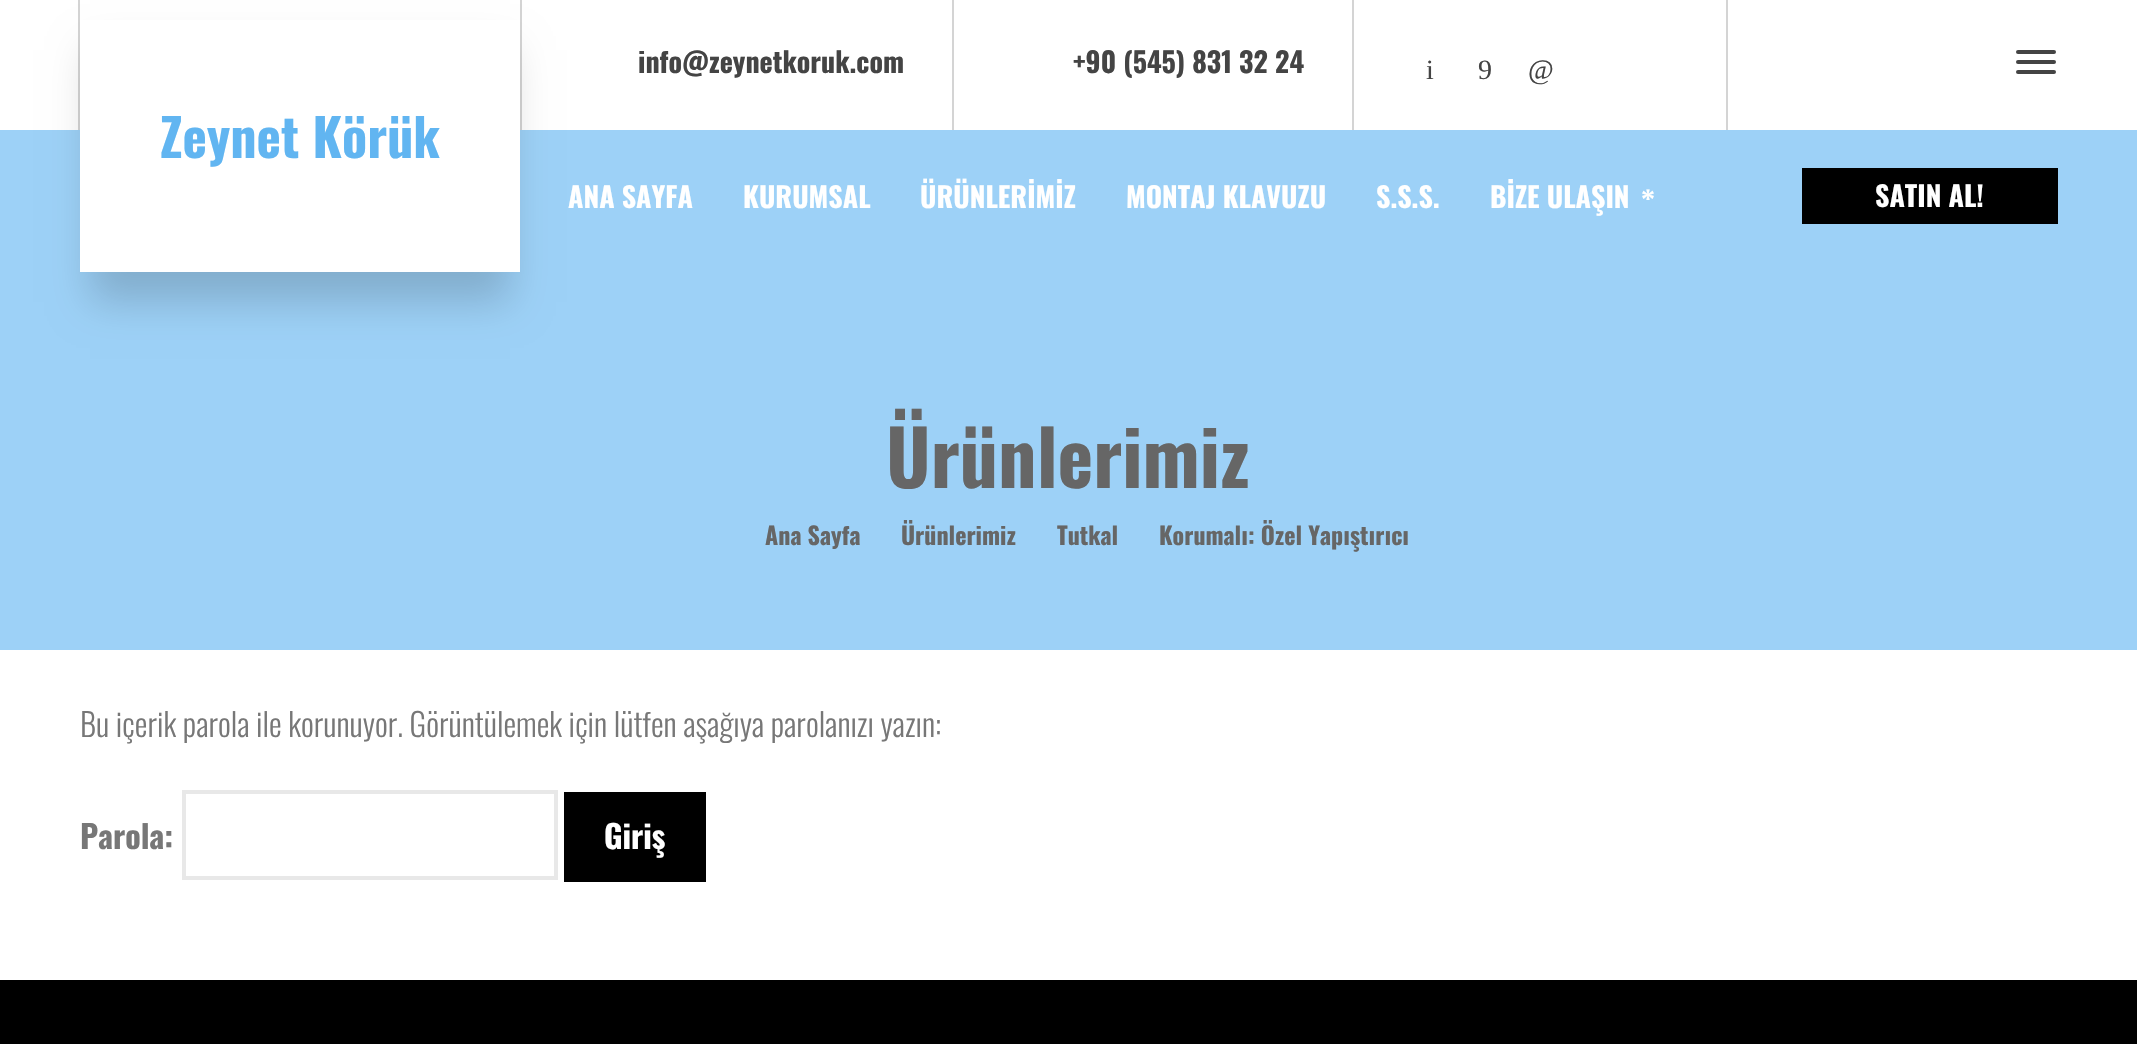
void draw(SkCanvas* canvas) {
    SkPaint paint;
    paint.setAntiAlias(true);
    auto face = [&](const char* family, int weight, float size, bool italic = false) {
        SkFontStyle style(weight, SkFontStyle::kNormal_Width,
            italic ? SkFontStyle::kItalic_Slant : SkFontStyle::kUpright_Slant);
        SkFont result(fontMgr->matchFamilyStyle(family, style), size);
        result.setSubpixel(true);
        return result;
    };
    auto write = [&](const char* s, float x, float y, const SkFont& font, SkColor color) {
        SkPaint ink(SkColor4f::FromColor(color));
        ink.setAntiAlias(true);
        canvas->drawString(s, x, y, font, ink);
    };
    auto block = [&](float x, float y, float w, float h, SkColor color) {
        SkPaint ink(SkColor4f::FromColor(color));
        ink.setAntiAlias(true);
        canvas->drawRect(SkRect::MakeXYWH(x, y, w, h), ink);
    };
    auto card = [&](float x, float y, float w, float h, float radius, SkColor color) {
        SkPaint ink(SkColor4f::FromColor(color));
        ink.setAntiAlias(true);
        canvas->drawRoundRect(SkRect::MakeXYWH(x, y, w, h), radius, radius, ink);
    };
    canvas->clear(SK_ColorWHITE);
    block(952, 0, 2, 130, SkColorSetRGB(212, 212, 212));
    auto kFont1 = face("Oswald", 700, 28);
    write("info@zeynetkoruk.com", 638, 73, kFont1, SkColorSetRGB(68, 68, 68));
    block(1352, 0, 2, 130, SkColorSetRGB(212, 212, 212));
    write("+90 (545) 831 32 24", 1073, 73, kFont1, SkColorSetRGB(68, 68, 68));
    block(1726, 0, 2, 130, SkColorSetRGB(212, 212, 212));
    auto kFont2 = face("Liberation Serif", 400, 28);
    write("i", 1426, 79, kFont2, SkColorSetRGB(68, 68, 68));
    write("9", 1478, 79, kFont2, SkColorSetRGB(68, 68, 68));
    write("@", 1528, 79, kFont2, SkColorSetRGB(68, 68, 68));
    card(2016, 50, 40, 4, 2, SkColorSetRGB(68, 68, 68));
    card(2016, 60, 40, 4, 2, SkColorSetRGB(68, 68, 68));
    card(2016, 70, 40, 4, 2, SkColorSetRGB(68, 68, 68));
    block(0, 130, 2137, 520, SkColorSetRGB(157, 209, 247));
    paint.setColor(SkColorSetARGB(43, 0, 0, 0));
    paint.setMaskFilter(SkMaskFilter::MakeBlur(kNormal_SkBlurStyle, 19));
    canvas->drawRect(SkRect::MakeXYWH(90, 50, 420, 252), paint);
    paint.setMaskFilter(nullptr);
    block(80, 20, 440, 252, SK_ColorWHITE);
    block(78, 0, 2, 130, SkColorSetARGB(43, 0, 0, 0));
    block(520, 0, 2, 130, SkColorSetARGB(43, 0, 0, 0));
    auto kFont3 = face("Oswald", 700, 52);
    write("Zeynet Körük", 160, 158, kFont3, SkColorSetRGB(97, 181, 241));
    write("ANA SAYFA", 568, 208, kFont1, SK_ColorWHITE);
    write("KURUMSAL", 743, 208, kFont1, SK_ColorWHITE);
    write("ÜRÜNLERİMİZ", 920, 208, kFont1, SK_ColorWHITE);
    write("MONTAJ KLAVUZU", 1126, 208, kFont1, SK_ColorWHITE);
    write("S.S.S.", 1376, 208, kFont1, SK_ColorWHITE);
    write("BİZE ULAŞIN", 1490, 208, kFont1, SK_ColorWHITE);
    auto kFont4 = face("Liberation Serif", 700, 28);
    write("*", 1641, 208, kFont4, SK_ColorWHITE);
    block(1802, 168, 256, 56, SK_ColorBLACK);
    write("SATIN AL!", 1875, 207, kFont1, SK_ColorWHITE);
    auto kFont5 = face("Oswald", 700, 76);
    write("Ürünlerimiz", 886, 488, kFont5, SkColorSetRGB(102, 102, 102));
    auto kFont6 = face("Oswald", 700, 24);
    write("Ana Sayfa", 765, 545, kFont6, SkColorSetRGB(102, 102, 102));
    write("Ürünlerimiz", 901, 545, kFont6, SkColorSetRGB(102, 102, 102));
    write("Tutkal", 1057, 545, kFont6, SkColorSetRGB(102, 102, 102));
    write("Korumalı: Özel Yapıştırıcı", 1159, 545, kFont6, SkColorSetRGB(102, 102, 102));
    auto kFont7 = face("Oswald", 300, 32);
    write("Bu içerik parola ile korunuyor. Görüntülemek için lütfen aşağıya parolanızı yazın:", 80, 737, kFont7, SkColorSetRGB(119, 119, 119));
    auto kFont8 = face("Oswald", 700, 32);
    write("Parola:", 80, 849, kFont8, SkColorSetRGB(119, 119, 119));
    paint.setStyle(SkPaint::kStroke_Style);
    paint.setStrokeWidth(4);
    paint.setColor(SkColorSetRGB(232, 232, 232));
    canvas->drawRect(SkRect::MakeXYWH(184, 792, 372, 86), paint);
    block(564, 792, 142, 90, SK_ColorBLACK);
    write("Giriş", 604, 849, kFont8, SK_ColorWHITE);
    block(0, 980, 2137, 64, SK_ColorBLACK);
}
